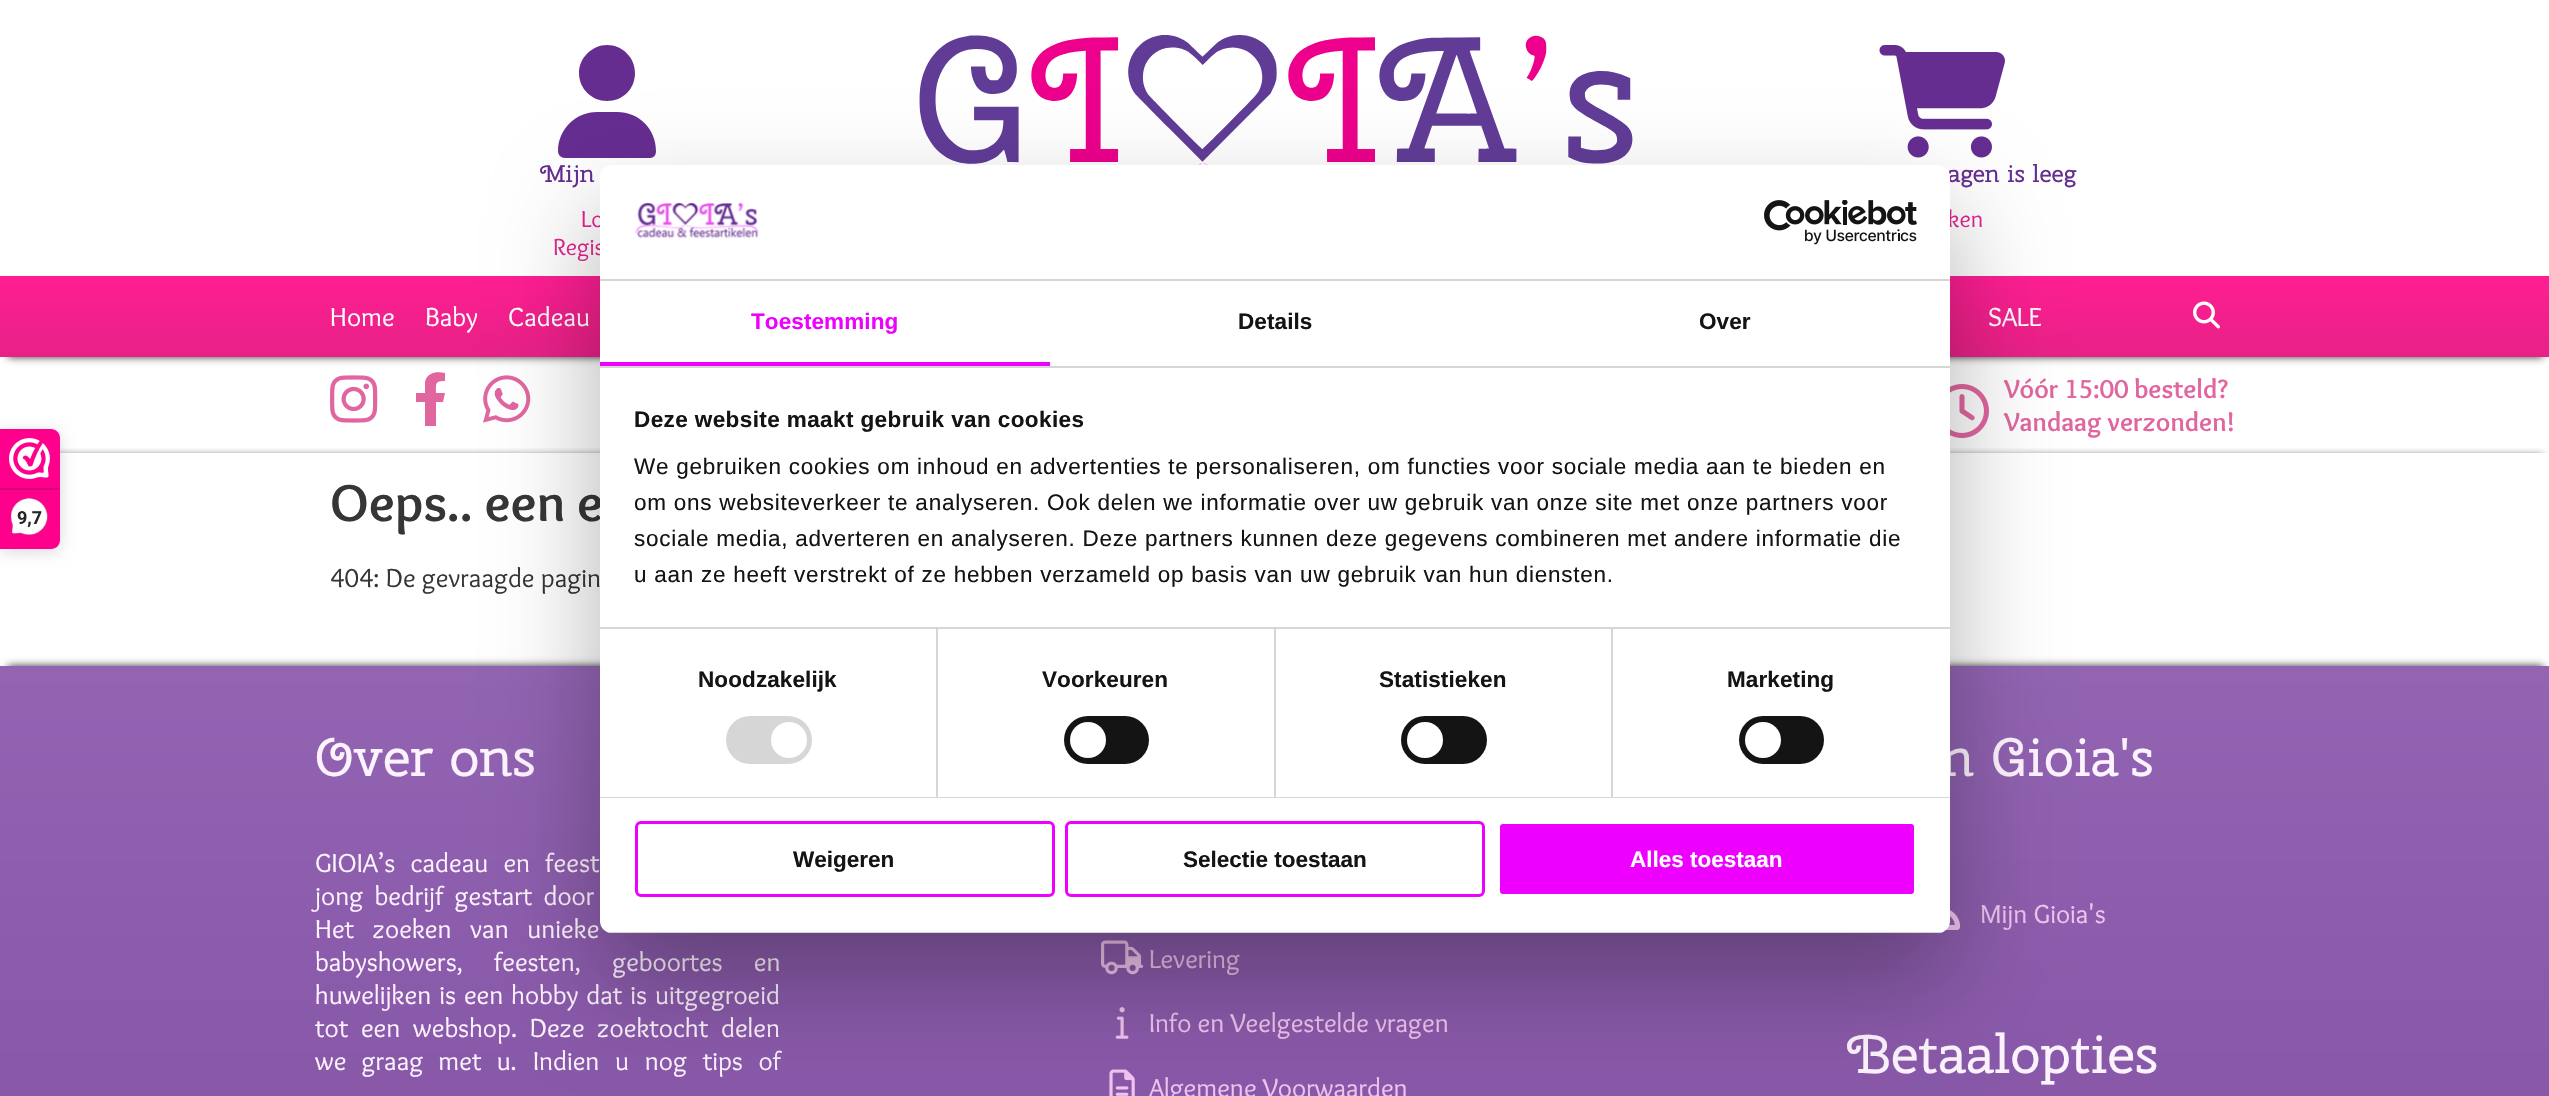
void draw(SkCanvas* canvas) {
    SkPaint paint;
    paint.setAntiAlias(true);
    auto face = [&](const char* family, int weight, float size, bool italic = false) {
        SkFontStyle style(weight, SkFontStyle::kNormal_Width,
            italic ? SkFontStyle::kItalic_Slant : SkFontStyle::kUpright_Slant);
        SkFont result(fontMgr->matchFamilyStyle(family, style), size);
        result.setSubpixel(true);
        return result;
    };
    auto write = [&](const char* s, float x, float y, const SkFont& font, SkColor color) {
        SkPaint ink(SkColor4f::FromColor(color));
        ink.setAntiAlias(true);
        canvas->drawString(s, x, y, font, ink);
    };
    auto writeSpaced = [&](const char* s, float x, float y, const SkFont& font, const SkPaint& ink, float letter, float word) {
        std::vector<SkGlyphID> glyphs(font.countText(s, strlen(s), SkTextEncoding::kUTF8));
        std::vector<float> xs(glyphs.size());
        font.textToGlyphs(s, strlen(s), SkTextEncoding::kUTF8, glyphs);
        font.getXPos(glyphs, xs, x);
        float extra = 0;
        for (size_t i = 0; i < glyphs.size(); i++) {
            xs[i] += extra;
            extra += letter + word * (glyphs[i] == font.unicharToGlyph(' '));
        }
        canvas->drawTextBlob(SkTextBlob::MakeFromPosHGlyphs(glyphs, xs, y, font), 0, 0, ink);
    };
    auto block = [&](float x, float y, float w, float h, SkColor color) {
        SkPaint ink(SkColor4f::FromColor(color));
        ink.setAntiAlias(true);
        canvas->drawRect(SkRect::MakeXYWH(x, y, w, h), ink);
    };
    auto card = [&](float x, float y, float w, float h, float radius, SkColor color) {
        SkPaint ink(SkColor4f::FromColor(color));
        ink.setAntiAlias(true);
        canvas->drawRoundRect(SkRect::MakeXYWH(x, y, w, h), radius, radius, ink);
    };
    auto paste = [&](const char* path, float x, float y, float w, float h) {
        auto image = SkImages::DeferredFromEncodedData(SkData::MakeFromFileName(path));
        canvas->drawImageRect(image, SkRect::MakeXYWH(x, y, w, h), SkSamplingOptions());
    };
    canvas->clear(SK_ColorWHITE);
    paste("pic1.png", 919, 35, 714, 130);
    paint.setColor(SkColorSetRGB(102, 45, 145));
    canvas->drawPath(SkPathBuilder().moveTo(607, 101).cubicTo(623, 101, 635, 89, 635, 73).cubicTo(635, 58, 623, 45, 607, 45).cubicTo(592, 45, 579, 58, 579, 73).cubicTo(579, 89, 592, 101, 607, 101).close().moveTo(597, 112).cubicTo(576, 112, 558, 129, 558, 151).cubicTo(558, 155, 561, 158, 565, 158).lineTo(650, 158).cubicTo(654, 158, 656, 155, 656, 151).cubicTo(656, 129, 639, 112, 617, 112).close().detach(), paint);
    auto kFont1 = face("Cherry Swash", 400, 24);
    write("Mijn", 540, 182, kFont1, SkColorSetRGB(102, 45, 145));
    auto kFont2 = face("Overlock", 400, 24);
    write("Lo", 581, 227, kFont2, SkColorSetRGB(230, 35, 145));
    write("Regis", 553, 255, kFont2, SkColorSetRGB(230, 35, 145));
    paste("pic2.png", 1879, 45, 126, 113);
    write("agen is leeg", 1948, 182, kFont1, SkColorSetRGB(102, 45, 145));
    write("ken", 1948, 227, kFont2, SkColorSetRGB(230, 35, 145));
    paint.setColor(SkColorSetRGB(51, 51, 51));
    paint.setMaskFilter(SkMaskFilter::MakeBlur(kNormal_SkBlurStyle, 4));
    canvas->drawRect(SkRect::MakeXYWH(8, 291, 2535, 66), paint);
    paint.setMaskFilter(nullptr);
    {
        const SkColor colors[] = {SkColorSetRGB(255, 30, 146), SkColorSetRGB(231, 33, 135)};
        const float stops[] = {0, 1};
        const SkPoint ends[] = {{1275, 276}, {1275, 357}};
        paint.setShader(SkGradientShader::MakeLinear(ends, colors, stops, 2, SkTileMode::kClamp));
        paint.setAlpha(255);
    }
    canvas->drawRect(SkRect::MakeXYWH(0, 276, 2549, 81), paint);
    auto kFont3 = face("Overlock", 400, 27);
    write("Home", 330, 326, kFont3, SK_ColorWHITE);
    write("Baby", 425, 326, kFont3, SK_ColorWHITE);
    write("Cadeau", 508, 326, kFont3, SK_ColorWHITE);
    write("SALE", 1988, 326, kFont3, SK_ColorWHITE);
    paste("pic3.png", 2193, 301, 27, 28);
    paste("pic4.png", 330, 375, 48, 48);
    paint.setShader(nullptr);
    paint.setColor(SkColorSetRGB(225, 102, 160));
    canvas->drawPath(SkPathBuilder().moveTo(443, 402).lineTo(445, 393).lineTo(436, 393).cubicTo(436, 383, 435, 381, 445, 381).lineTo(445, 373).cubicTo(437, 371, 427, 372, 425, 382).lineTo(425, 393).lineTo(416, 393).lineTo(416, 402).lineTo(425, 402).lineTo(425, 426).lineTo(436, 426).lineTo(436, 402).close().detach(), paint);
    paste("pic5.png", 483, 375, 48, 48);
    paste("pic6.png", 1950, 384, 39, 54);
    auto kFont4 = face("Overlock", 700, 27);
    write("Vóór 15:00 besteld?", 2004, 398, kFont4, SkColorSetRGB(225, 102, 160));
    write("Vandaag verzonden!", 2004, 431, kFont4, SkColorSetRGB(225, 102, 160));
    canvas->save();
    canvas->clipRect(SkRect::MakeXYWH(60, 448, 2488, 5));
    paint.setColor(SkColorSetRGB(51, 51, 51));
    paint.setMaskFilter(SkMaskFilter::MakeBlur(kNormal_SkBlurStyle, 4));
    canvas->drawRect(SkRect::MakeXYWH(8, 456, 2535, 168), paint);
    paint.setMaskFilter(nullptr);
    canvas->restore();
    auto kFont5 = face("Overlock", 700, 54);
    write("Oeps.. een e", 330, 521, kFont5, SkColorSetRGB(54, 54, 54));
    write("404: De gevraagde pagin", 330, 587, kFont3, SkColorSetRGB(54, 54, 54));
    paint.setMaskFilter(SkMaskFilter::MakeBlur(kNormal_SkBlurStyle, 4));
    canvas->drawRect(SkRect::MakeXYWH(8, 666, 2535, 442), paint);
    paint.setMaskFilter(nullptr);
    {
        const SkColor colors[] = {SkColorSetRGB(146, 100, 178), SkColorSetRGB(125, 73, 157)};
        const float stops[] = {0, 1};
        const SkPoint ends[] = {{1275, 666}, {1275, 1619}};
        paint.setShader(SkGradientShader::MakeLinear(ends, colors, stops, 2, SkTileMode::kClamp));
        paint.setAlpha(255);
    }
    canvas->drawRect(SkRect::MakeXYWH(0, 666, 2549, 430), paint);
    auto kFont6 = face("Cherry Swash", 400, 54);
    write("Over ons", 315, 776, kFont6, SkColorSetRGB(253, 243, 254));
    paint.setShader(nullptr);
    paint.setColor(SkColorSetRGB(253, 243, 254));
    writeSpaced("GIOIA’s cadeau en feest", 315, 872, kFont3, paint, 0, 9);
    writeSpaced("jong bedrijf gestart door", 315, 905, kFont3, paint, 0, 5);
    writeSpaced("Het zoeken van unieke", 315, 938, kFont3, paint, 0, 12.5f);
    writeSpaced("babyshowers, feesten, geboortes en", 315, 971, kFont3, paint, 0, 25);
    writeSpaced("huwelijken is een hobby dat is uitgegroeid", 315, 1004, kFont3, paint, 0, 1.75f);
    writeSpaced("tot een webshop. Deze zoektocht delen", 315, 1037, kFont3, paint, 0, 6.5f);
    writeSpaced("we graag met u.", 315, 1070, kFont3, paint, 0, 9);
    writeSpaced("Indien u nog tips of", 533, 1070, kFont3, paint, 0, 9.5f);
    paste("pic7.png", 1101, 940, 43, 35);
    write("Levering", 1149, 968, kFont3, SkColorSetRGB(241, 195, 239));
    paste("pic8.png", 1115, 1007, 14, 32);
    write("Info en Veelgestelde vragen", 1149, 1032, kFont3, SkColorSetRGB(241, 195, 239));
    paste("pic9.png", 1109, 1069, 26, 27);
    write("Algemene Voorwaarden", 1149, 1097, kFont3, SkColorSetRGB(241, 195, 239));
    write("n Gioia's", 1941, 776, kFont6, SkColorSetRGB(253, 243, 254));
    paste("pic10.png", 1945, 910, 16, 20);
    write("Mijn Gioia's", 1980, 923, kFont3, SkColorSetRGB(241, 195, 239));
    write("Betaalopties", 1847, 1073, kFont6, SkColorSetRGB(253, 243, 254));
    paint.setColor(SkColorSetARGB(38, 0, 0, 0));
    paint.setMaskFilter(SkMaskFilter::MakeBlur(kNormal_SkBlurStyle, 7.5f));
    canvas->drawRoundRect(SkRect::MakeXYWH(0, 432, 60, 120), 9, 9, paint);
    paint.setMaskFilter(nullptr);
    paint.setColor(SkColorSetRGB(254, 0, 140));
    canvas->drawPath(SkPathBuilder().moveTo(0, 429).lineTo(51, 429).cubicTo(56, 429, 60, 433, 60, 438).lineTo(60, 540).cubicTo(60, 545, 56, 549, 51, 549).lineTo(0, 549).close().detach(), paint);
    paste("pic11.png", 9, 438, 41, 41);
    block(0, 488, 59, 2, SkColorSetRGB(216, 0, 119));
    paste("pic12.png", 10, 498, 38, 38);
    auto kFont7 = face("Roboto", 700, 18);
    write("9,7", 17, 524, kFont7, SkColorSetRGB(39, 38, 38));
    paint.setColor(SkColorSetARGB(77, 0, 0, 0));
    paint.setMaskFilter(SkMaskFilter::MakeBlur(kNormal_SkBlurStyle, 51));
    canvas->drawRoundRect(SkRect::MakeXYWH(600, 213, 1350, 768), 12, 12, paint);
    paint.setMaskFilter(nullptr);
    card(600, 165, 1350, 768, 12, SK_ColorWHITE);
    block(600, 279, 1350, 2, SkColorSetRGB(214, 214, 214));
    paste("pic13.png", 635, 202, 124, 37);
    paste("pic14.png", 1764, 200, 153, 45);
    block(600, 366, 1350, 2, SkColorSetRGB(214, 214, 214));
    block(600, 362, 450, 4, SkColorSetRGB(238, 0, 255));
    auto kFont8 = face("Liberation Sans", 700, 22.5f);
    paint.setColor(SkColorSetRGB(238, 0, 255));
    writeSpaced("Toestemming", 751, 329, kFont8, paint, 0.1f, 0);
    paint.setColor(SkColorSetRGB(20, 20, 20));
    writeSpaced("Details", 1238, 329, kFont8, paint, 0.1f, 0);
    writeSpaced("Over", 1699, 329, kFont8, paint, 0.1f, 0);
    block(600, 627, 1350, 2, SkColorSetRGB(214, 214, 214));
    writeSpaced("Deze website maakt gebruik van cookies", 634, 427, kFont8, paint, 0.4f, 0);
    auto kFont9 = face("Liberation Sans", 400, 22.5f);
    writeSpaced("We gebruiken cookies om inhoud en advertenties te personaliseren, om functies voor sociale media aan te bieden en", 634, 474, kFont9, paint, 0.75f, 0);
    writeSpaced("om ons websiteverkeer te analyseren. Ook delen we informatie over uw gebruik van onze site met onze partners voor", 634, 510, kFont9, paint, 0.75f, 0);
    writeSpaced("sociale media, adverteren en analyseren. Deze partners kunnen deze gegevens combineren met andere informatie die", 634, 546, kFont9, paint, 0.75f, 0);
    writeSpaced("u aan ze heeft verstrekt of ze hebben verzameld op basis van uw gebruik van hun diensten.", 634, 582, kFont9, paint, 0.75f, 0);
    block(600, 797, 1350, 1, SkColorSetRGB(214, 214, 214));
    block(936, 629, 2, 168, SkColorSetRGB(214, 214, 214));
    writeSpaced("Noodzakelijk", 698, 687, kFont8, paint, 0.1f, 0);
    card(726, 716, 86, 48, 24, SkColorSetRGB(214, 214, 214));
    paint.setColor(SK_ColorWHITE);
    canvas->drawCircle(789, 740, 18, paint);
    block(1274, 629, 2, 168, SkColorSetRGB(214, 214, 214));
    paint.setColor(SkColorSetRGB(20, 20, 20));
    writeSpaced("Voorkeuren", 1042, 687, kFont8, paint, 0.1f, 0);
    card(1064, 716, 85, 48, 24, SkColorSetRGB(20, 20, 20));
    paint.setColor(SK_ColorWHITE);
    canvas->drawCircle(1088, 740, 18, paint);
    block(1611, 629, 2, 168, SkColorSetRGB(214, 214, 214));
    paint.setColor(SkColorSetRGB(20, 20, 20));
    writeSpaced("Statistieken", 1379, 687, kFont8, paint, 0.1f, 0);
    card(1401, 716, 86, 48, 24, SkColorSetRGB(20, 20, 20));
    paint.setColor(SK_ColorWHITE);
    canvas->drawCircle(1425, 740, 18, paint);
    paint.setColor(SkColorSetRGB(20, 20, 20));
    writeSpaced("Marketing", 1727, 687, kFont8, paint, 0.1f, 0);
    card(1739, 716, 85, 48, 24, SkColorSetRGB(20, 20, 20));
    paint.setColor(SK_ColorWHITE);
    canvas->drawCircle(1763, 740, 18, paint);
    canvas->save();
    canvas->clipPath(SkPathBuilder().moveTo(612, 165).lineTo(1938, 165).cubicTo(1944.5f, 165, 1950, 170.5f, 1950, 177).lineTo(1950, 921).cubicTo(1950, 927.5f, 1944.5f, 933, 1938, 933).lineTo(612, 933).cubicTo(605.5f, 933, 600, 927.5f, 600, 921).lineTo(600, 177).cubicTo(600, 170.5f, 605.5f, 165, 612, 165).close().detach(), true);
    block(600, 932, 1350, 1, SkColorSetRGB(214, 214, 214));
    canvas->restore();
    paint.setStyle(SkPaint::kStroke_Style);
    paint.setStrokeWidth(3);
    paint.setColor(SkColorSetRGB(238, 0, 255));
    canvas->drawRoundRect(SkRect::MakeXYWH(636.5f, 822.5f, 417, 73), 4.5f, 4.5f, paint);
    write("Weigeren", 793, 867, kFont8, SkColorSetRGB(20, 20, 20));
    canvas->drawRoundRect(SkRect::MakeXYWH(1066.5f, 822.5f, 417, 73), 4.5f, 4.5f, paint);
    write("Selectie toestaan", 1183, 867, kFont8, SkColorSetRGB(20, 20, 20));
    paint.setStyle(SkPaint::kFill_Style);
    canvas->drawRoundRect(SkRect::MakeXYWH(1498.5f, 822.5f, 417, 73), 4.5f, 4.5f, paint);
    paint.setStyle(SkPaint::kStroke_Style);
    paint.setColor(SK_ColorWHITE);
    canvas->drawRoundRect(SkRect::MakeXYWH(1498.5f, 822.5f, 417, 73), 4.5f, 4.5f, paint);
    write("Alles toestaan", 1630, 867, kFont8, SK_ColorWHITE);
}
